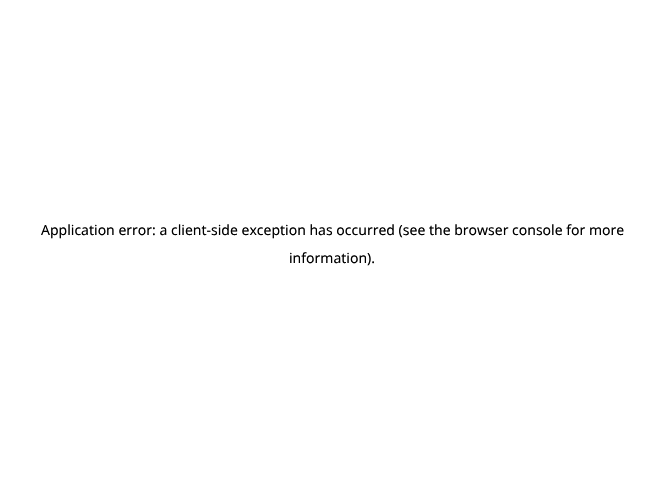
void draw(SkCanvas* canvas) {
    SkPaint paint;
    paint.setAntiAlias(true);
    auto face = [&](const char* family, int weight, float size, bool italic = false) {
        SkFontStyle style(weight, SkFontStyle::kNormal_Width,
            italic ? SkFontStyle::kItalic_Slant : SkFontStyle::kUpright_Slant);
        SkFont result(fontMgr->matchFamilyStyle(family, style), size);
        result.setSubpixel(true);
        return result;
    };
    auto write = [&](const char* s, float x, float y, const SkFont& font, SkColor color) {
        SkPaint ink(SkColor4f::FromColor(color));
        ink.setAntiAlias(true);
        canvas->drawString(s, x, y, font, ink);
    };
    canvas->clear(SK_ColorWHITE);
    auto kFont1 = face("Noto Sans", 400, 14);
    write("Application error: a client-side exception has occurred (see the browser console for more", 41, 235, kFont1, SK_ColorBLACK);
    write("information).", 289, 263, kFont1, SK_ColorBLACK);
}
